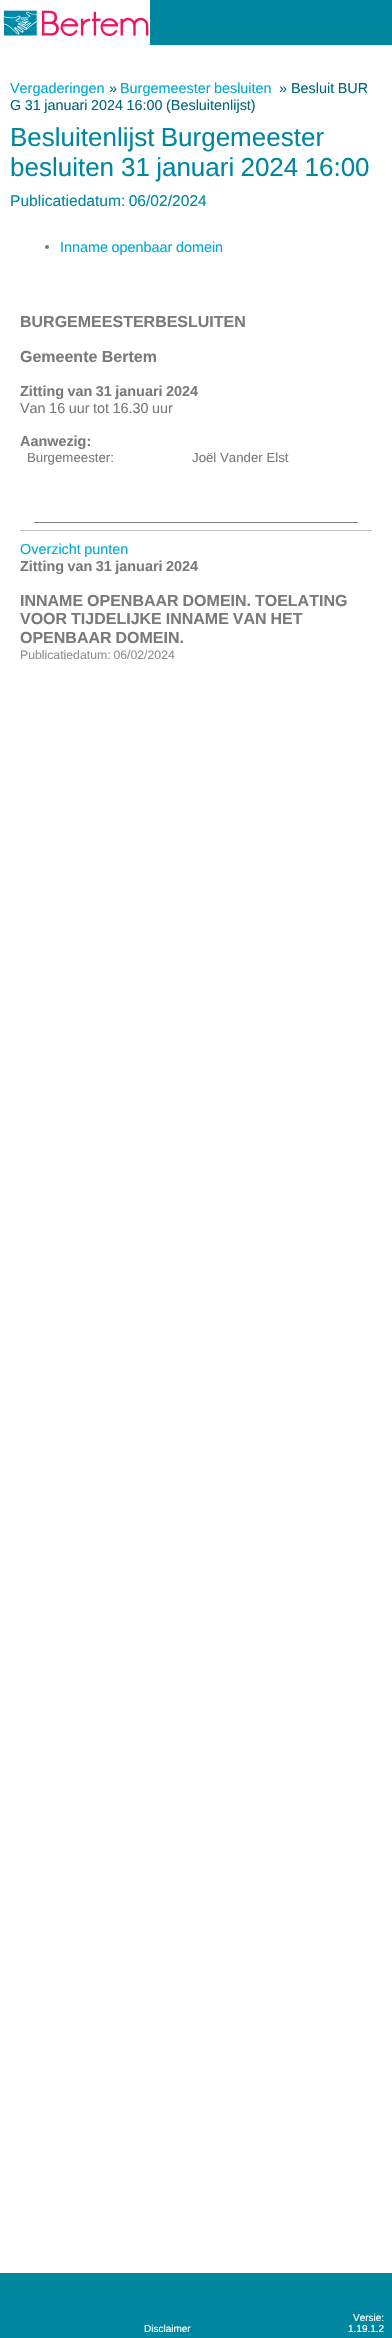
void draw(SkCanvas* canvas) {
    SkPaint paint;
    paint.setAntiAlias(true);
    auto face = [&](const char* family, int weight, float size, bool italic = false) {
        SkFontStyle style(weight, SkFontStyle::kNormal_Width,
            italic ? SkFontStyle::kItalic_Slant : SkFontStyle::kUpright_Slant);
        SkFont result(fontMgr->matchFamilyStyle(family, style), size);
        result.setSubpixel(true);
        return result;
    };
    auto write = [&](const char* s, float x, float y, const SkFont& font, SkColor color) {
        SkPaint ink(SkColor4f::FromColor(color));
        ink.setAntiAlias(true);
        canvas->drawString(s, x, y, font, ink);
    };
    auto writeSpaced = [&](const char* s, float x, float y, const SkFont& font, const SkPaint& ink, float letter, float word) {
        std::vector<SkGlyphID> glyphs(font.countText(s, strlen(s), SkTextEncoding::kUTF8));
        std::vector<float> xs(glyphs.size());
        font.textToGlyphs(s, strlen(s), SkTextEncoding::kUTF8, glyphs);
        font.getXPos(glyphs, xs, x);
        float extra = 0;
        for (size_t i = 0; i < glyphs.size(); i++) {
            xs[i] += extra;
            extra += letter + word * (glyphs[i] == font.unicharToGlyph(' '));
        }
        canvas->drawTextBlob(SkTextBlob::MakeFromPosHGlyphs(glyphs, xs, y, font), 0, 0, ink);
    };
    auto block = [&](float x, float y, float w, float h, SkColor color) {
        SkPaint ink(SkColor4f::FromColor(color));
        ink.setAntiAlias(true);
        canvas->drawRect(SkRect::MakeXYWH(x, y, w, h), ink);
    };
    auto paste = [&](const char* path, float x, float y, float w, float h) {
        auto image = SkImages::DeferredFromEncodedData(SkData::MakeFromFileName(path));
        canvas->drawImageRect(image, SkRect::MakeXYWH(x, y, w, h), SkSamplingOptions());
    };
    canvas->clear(SK_ColorWHITE);
    paste("pic1.png", 3, 10, 146, 27);
    block(150, 0, 242, 45, SkColorSetRGB(0, 135, 160));
    auto kFont1 = face("Liberation Sans", 400, 14.4f);
    write("Vergaderingen", 10, 93, kFont1, SkColorSetRGB(0, 169, 208));
    write("»", 109, 93, kFont1, SkColorSetRGB(0, 104, 122));
    paint.setColor(SkColorSetRGB(0, 169, 208));
    writeSpaced("Burgemeester besluiten", 120, 93, kFont1, paint, 0, -0.5f);
    write("»", 279, 93, kFont1, SkColorSetRGB(0, 104, 122));
    paint.setColor(SkColorSetRGB(0, 104, 122));
    writeSpaced("Besluit BUR", 291, 93, kFont1, paint, 0, -0.5f);
    writeSpaced("G 31 januari 2024 16:00 (Besluitenlijst)", 10, 110, kFont1, paint, 0, -0.5f);
    auto kFont2 = face("Liberation Sans", 400, 26);
    paint.setColor(SkColorSetRGB(0, 135, 160));
    writeSpaced("Besluitenlijst Burgemeester", 10, 146, kFont2, paint, 0, -1);
    write("besluiten", 10, 176, kFont2, SkColorSetRGB(0, 135, 160));
    writeSpaced("31 januari 2024 16:00", 121, 176, kFont2, paint, 0, -1);
    auto kFont3 = face("Liberation Sans", 400, 15.6f);
    writeSpaced("Publicatiedatum: 06/02/2024", 10, 206, kFont3, paint, 0, -1);
    paint.setColor(SkColorSetRGB(122, 122, 122));
    canvas->drawCircle(47, 247, 2, paint);
    paint.setColor(SkColorSetRGB(0, 169, 208));
    writeSpaced("Inname openbaar domein", 60, 252, kFont1, paint, 0, -0.5f);
    auto kFont4 = face("Liberation Sans", 700, 16);
    write("BURGEMEESTERBESLUITEN", 20, 327, kFont4, SkColorSetRGB(122, 122, 122));
    write("Gemeente Bertem", 20, 362, kFont4, SkColorSetRGB(122, 122, 122));
    auto kFont5 = face("Liberation Sans", 700, 14.4f);
    paint.setColor(SkColorSetRGB(122, 122, 122));
    writeSpaced("Zitting van 31 januari 2024", 20, 396, kFont5, paint, 0, -0.5f);
    writeSpaced("Van 16 uur tot 16.30 uur", 20, 413, kFont1, paint, 0, -0.5f);
    write("Aanwezig:", 20, 446, kFont5, SkColorSetRGB(122, 122, 122));
    auto kFont6 = face("Liberation Sans", 400, 13.25f);
    write("Burgemeester:", 27, 462, kFont6, SkColorSetRGB(122, 122, 122));
    write("Joël Vander Elst", 192, 462, kFont6, SkColorSetRGB(122, 122, 122));
    block(34, 522, 324, 1, SkColorSetRGB(128, 128, 128));
    block(20, 530, 352, 1, SkColorSetRGB(192, 192, 192));
    paint.setColor(SkColorSetRGB(0, 169, 208));
    writeSpaced("Overzicht punten", 20, 554, kFont1, paint, 0, -0.5f);
    paint.setColor(SkColorSetRGB(122, 122, 122));
    writeSpaced("Zitting van 31 januari 2024", 20, 571, kFont5, paint, 0, -0.5f);
    writeSpaced("INNAME OPENBAAR DOMEIN. TOELATING", 20, 606, kFont4, paint, 0, -0.5f);
    writeSpaced("VOOR TIJDELIJKE INNAME VAN HET", 20, 624, kFont4, paint, 0, -0.5f);
    writeSpaced("OPENBAAR DOMEIN.", 20, 643, kFont4, paint, 0, -0.5f);
    auto kFont7 = face("Liberation Sans", 400, 12.25f);
    paint.setColor(SkColorSetRGB(142, 142, 142));
    writeSpaced("Publicatiedatum: 06/02/2024", 20, 659, kFont7, paint, 0, -0.5f);
    block(0, 2273, 392, 65, SkColorSetRGB(0, 135, 160));
    auto kFont8 = face("Liberation Sans", 400, 10);
    write("Disclaimer", 144, 2332, kFont8, SK_ColorWHITE);
    write("Versie:", 353, 2321, kFont8, SK_ColorWHITE);
    write("1.19.1.2", 348, 2332, kFont8, SK_ColorWHITE);
}
